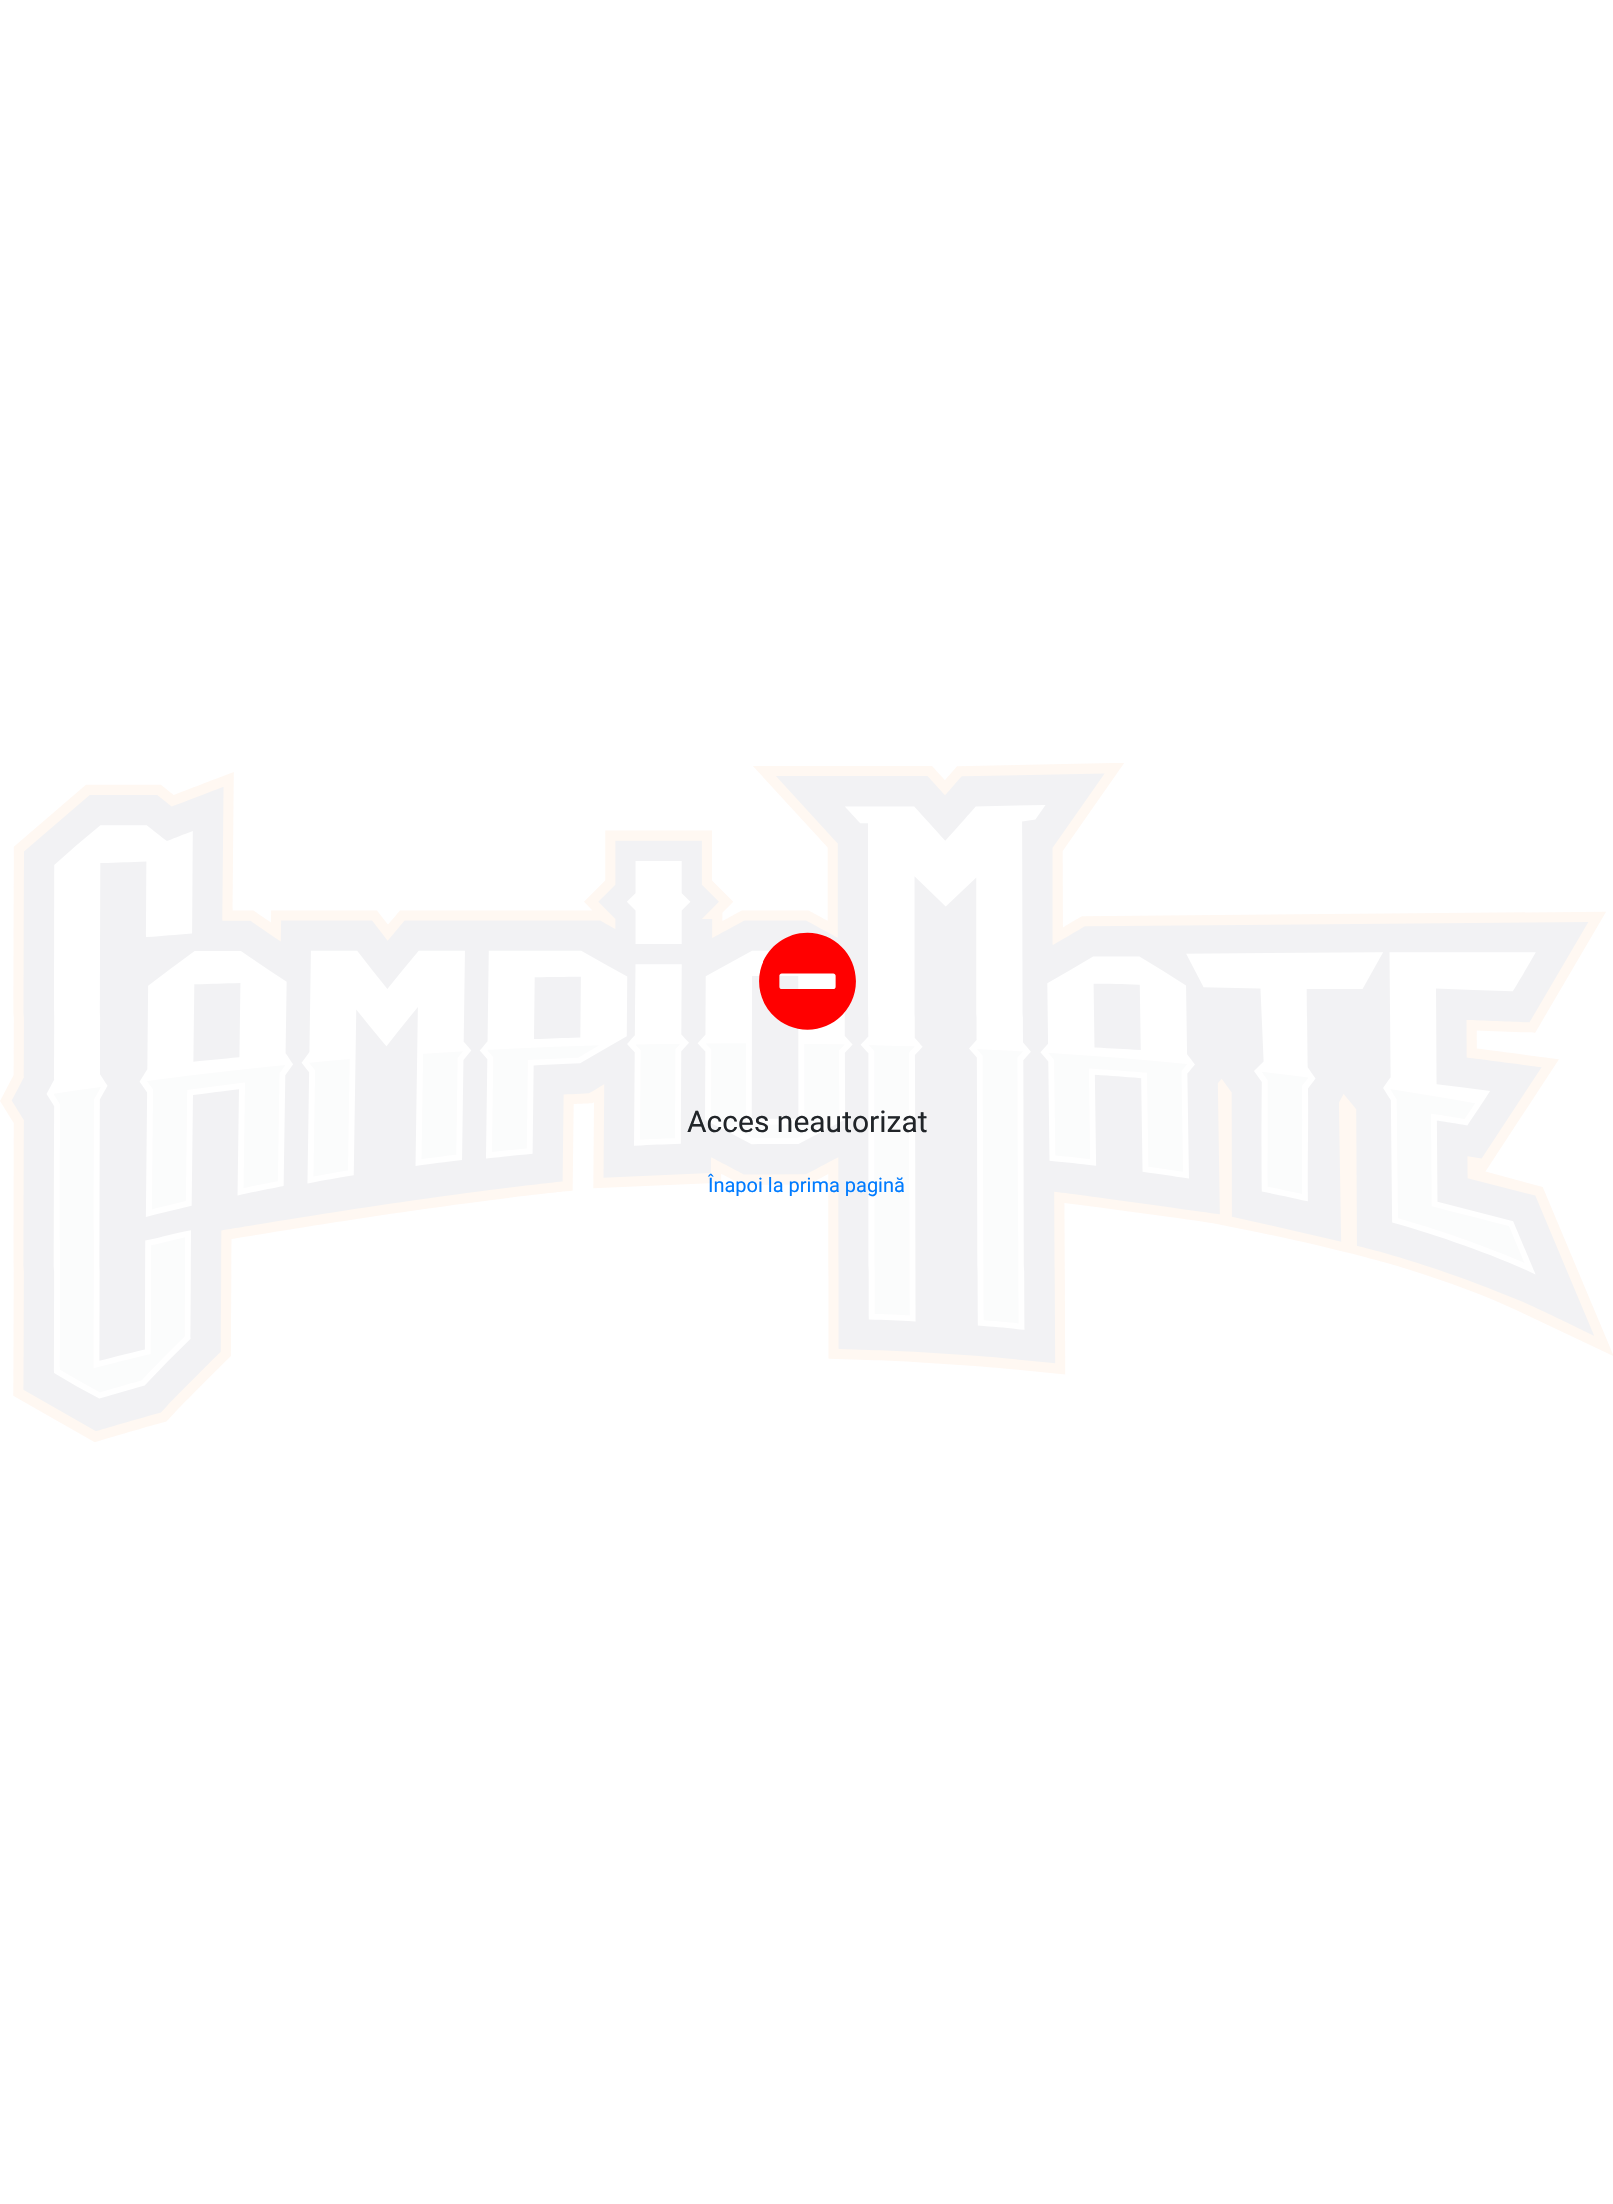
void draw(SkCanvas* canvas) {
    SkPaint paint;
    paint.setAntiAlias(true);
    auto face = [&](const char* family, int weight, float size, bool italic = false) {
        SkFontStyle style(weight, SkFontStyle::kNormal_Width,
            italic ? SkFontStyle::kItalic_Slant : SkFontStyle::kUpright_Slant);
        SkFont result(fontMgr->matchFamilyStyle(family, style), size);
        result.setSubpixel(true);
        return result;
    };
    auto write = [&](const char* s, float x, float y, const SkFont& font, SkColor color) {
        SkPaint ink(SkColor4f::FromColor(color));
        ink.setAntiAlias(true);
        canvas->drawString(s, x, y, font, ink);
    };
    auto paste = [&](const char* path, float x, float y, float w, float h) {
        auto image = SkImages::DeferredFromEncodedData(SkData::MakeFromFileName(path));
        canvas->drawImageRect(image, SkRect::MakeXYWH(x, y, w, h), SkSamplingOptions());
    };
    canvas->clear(SK_ColorWHITE);
    paste("pic1.png", 0, 763, 1613, 679);
    paste("pic2.png", 759, 932, 97, 98);
    auto kFont1 = face("Roboto", 400, 30);
    write("Acces neautorizat", 687, 1132, kFont1, SkColorSetRGB(33, 37, 41));
    auto kFont2 = face("Roboto", 400, 20);
    write("Înapoi la prima pagină", 708, 1192, kFont2, SkColorSetRGB(0, 123, 255));
}
